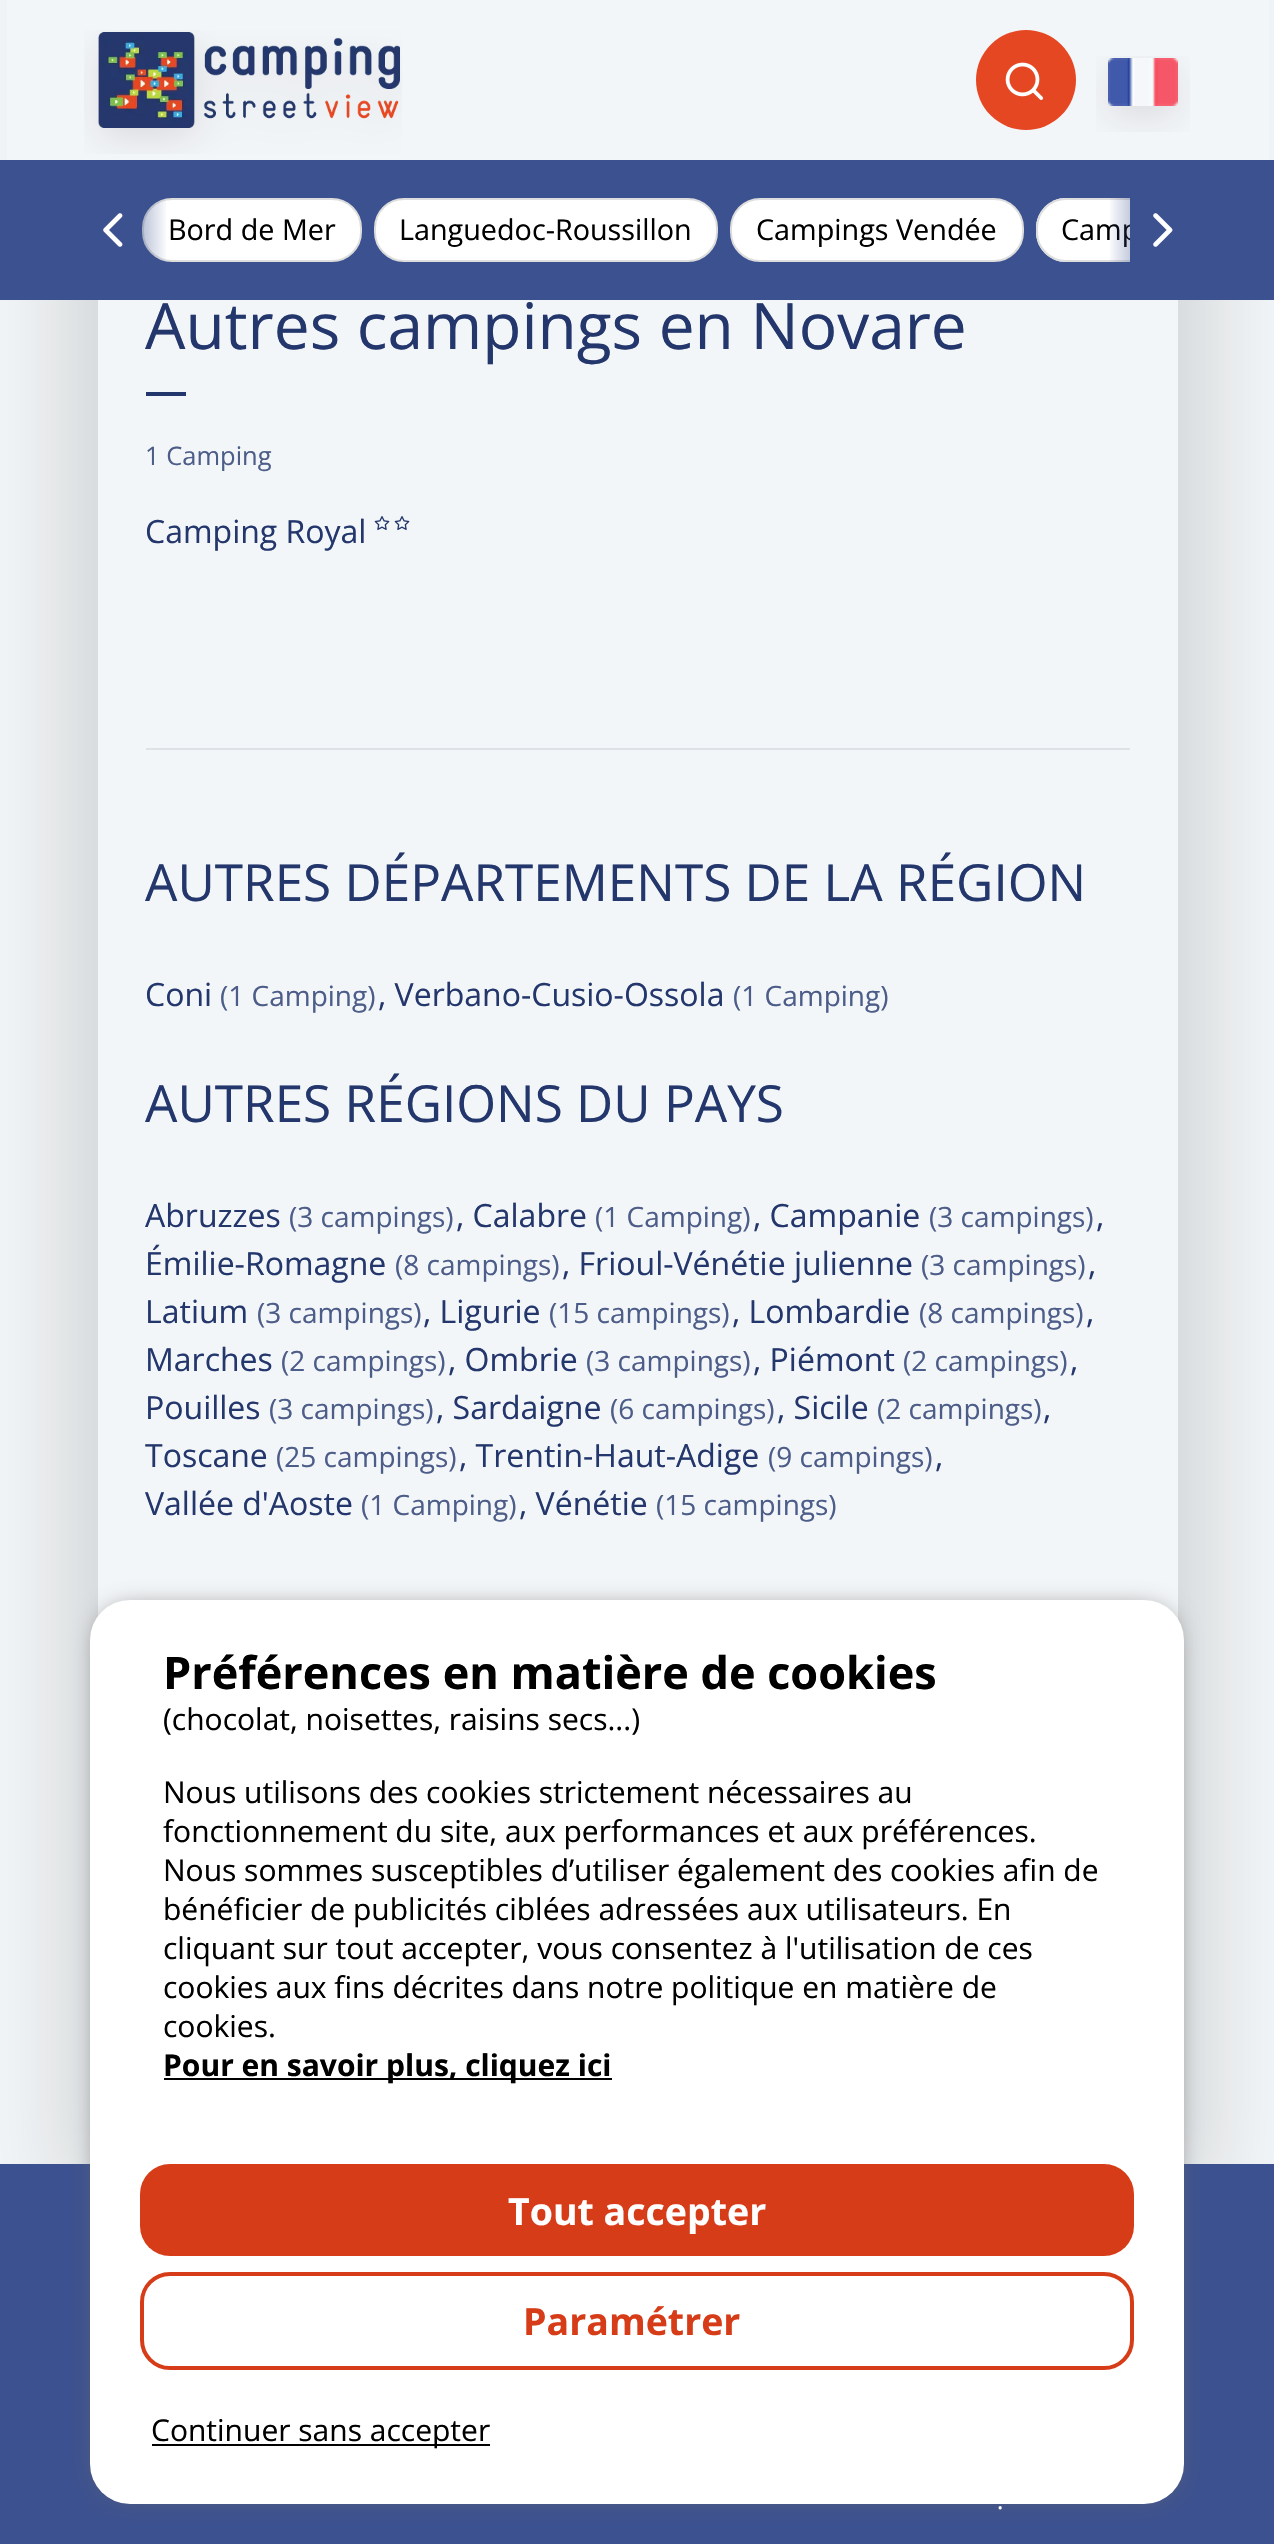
void draw(SkCanvas* canvas) {
    SkPaint paint;
    paint.setAntiAlias(true);
    auto face = [&](const char* family, int weight, float size, bool italic = false) {
        SkFontStyle style(weight, SkFontStyle::kNormal_Width,
            italic ? SkFontStyle::kItalic_Slant : SkFontStyle::kUpright_Slant);
        SkFont result(fontMgr->matchFamilyStyle(family, style), size);
        result.setSubpixel(true);
        return result;
    };
    auto write = [&](const char* s, float x, float y, const SkFont& font, SkColor color) {
        SkPaint ink(SkColor4f::FromColor(color));
        ink.setAntiAlias(true);
        canvas->drawString(s, x, y, font, ink);
    };
    auto block = [&](float x, float y, float w, float h, SkColor color) {
        SkPaint ink(SkColor4f::FromColor(color));
        ink.setAntiAlias(true);
        canvas->drawRect(SkRect::MakeXYWH(x, y, w, h), ink);
    };
    auto card = [&](float x, float y, float w, float h, float radius, SkColor color) {
        SkPaint ink(SkColor4f::FromColor(color));
        ink.setAntiAlias(true);
        canvas->drawRoundRect(SkRect::MakeXYWH(x, y, w, h), radius, radius, ink);
    };
    auto paste = [&](const char* path, float x, float y, float w, float h) {
        auto image = SkImages::DeferredFromEncodedData(SkData::MakeFromFileName(path));
        canvas->drawImageRect(image, SkRect::MakeXYWH(x, y, w, h), SkSamplingOptions());
    };
    canvas->clear(SkColorSetRGB(243, 246, 248));
    canvas->save();
    canvas->clipPath(SkPathBuilder(SkPathFillType::kEvenOdd).moveTo(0, 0).lineTo(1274, 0).lineTo(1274, 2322).lineTo(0, 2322).close().moveTo(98, -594).lineTo(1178, -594).lineTo(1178, 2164).lineTo(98, 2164).close().detach(), true);
    paint.setColor(SkColorSetARGB(33, 0, 0, 0));
    paint.setMaskFilter(SkMaskFilter::MakeBlur(kNormal_SkBlurStyle, 41));
    canvas->drawRect(SkRect::MakeXYWH(64, -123, 1148, 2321), paint);
    paint.setMaskFilter(nullptr);
    canvas->restore();
    block(7, 0, 1262, 160, SkColorSetRGB(243, 246, 248));
    paste("pic1.png", 84, 30, 318, 124);
    paint.setColor(SkColorSetRGB(230, 71, 35));
    canvas->drawCircle(1026, 80, 50, paint);
    paste("pic2.png", 1005, 62, 39, 38);
    paste("pic3.png", 1096, 56, 94, 76);
    block(0, 160, 1274, 140, SkColorSetRGB(60, 81, 143));
    paint.setColor(SK_ColorWHITE);
    canvas->drawRoundRect(SkRect::MakeXYWH(143, 199, 218, 62), 29, 29, paint);
    paint.setStyle(SkPaint::kStroke_Style);
    paint.setStrokeWidth(2);
    paint.setColor(SkColorSetRGB(221, 221, 221));
    canvas->drawRoundRect(SkRect::MakeXYWH(143, 199, 218, 62), 29, 29, paint);
    paint.setStyle(SkPaint::kFill_Style);
    {
        const SkColor colors[] = {SkColorSetARGB(0, 60, 81, 143), SkColorSetRGB(60, 81, 143), SkColorSetARGB(128, 60, 81, 143), SkColorSetARGB(0, 60, 81, 143)};
        const float stops[] = {0, 0.33f, 0.66f, 1};
        const SkPoint ends[] = {{58, 230}, {168, 230}};
        paint.setShader(SkGradientShader::MakeLinear(ends, colors, stops, 4, SkTileMode::kClamp));
        paint.setAlpha(255);
    }
    canvas->drawRect(SkRect::MakeXYWH(142, 198, 24, 64), paint);
    paste("pic4.png", 103, 213, 20, 34);
    auto kFont1 = face("Open Sans", 400, 28.75f);
    write("Bord de Mer", 168, 240, kFont1, SK_ColorBLACK);
    paint.setShader(nullptr);
    paint.setColor(SK_ColorWHITE);
    canvas->drawRoundRect(SkRect::MakeXYWH(375, 199, 342, 62), 29, 29, paint);
    paint.setStyle(SkPaint::kStroke_Style);
    paint.setColor(SkColorSetRGB(221, 221, 221));
    canvas->drawRoundRect(SkRect::MakeXYWH(375, 199, 342, 62), 29, 29, paint);
    write("Languedoc-Roussillon", 399, 240, kFont1, SK_ColorBLACK);
    paint.setStyle(SkPaint::kFill_Style);
    paint.setColor(SK_ColorWHITE);
    canvas->drawRoundRect(SkRect::MakeXYWH(731, 199, 292, 62), 29, 29, paint);
    paint.setStyle(SkPaint::kStroke_Style);
    paint.setColor(SkColorSetRGB(221, 221, 221));
    canvas->drawRoundRect(SkRect::MakeXYWH(731, 199, 292, 62), 29, 29, paint);
    write("Campings Vendée", 756, 240, kFont1, SK_ColorBLACK);
    paint.setStyle(SkPaint::kFill_Style);
    paint.setColor(SK_ColorWHITE);
    canvas->drawPath(SkPathBuilder().moveTo(1066, 198).lineTo(1130, 198).lineTo(1130, 262).lineTo(1066, 262).cubicTo(1049.5f, 262, 1036, 248.5f, 1036, 232).lineTo(1036, 228).cubicTo(1036, 211.5f, 1049.5f, 198, 1066, 198).close().detach(), paint);
    canvas->save();
    canvas->clipRect(SkRect::MakeXYWH(134, 198, 996, 64));
    paint.setStyle(SkPaint::kStroke_Style);
    paint.setColor(SkColorSetRGB(221, 221, 221));
    canvas->drawRoundRect(SkRect::MakeXYWH(1037, 199, 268, 62), 29, 29, paint);
    write("Camp", 1061, 240, kFont1, SK_ColorBLACK);
    canvas->restore();
    paint.setStyle(SkPaint::kFill_Style);
    {
        const SkColor colors[] = {SkColorSetARGB(0, 60, 81, 143), SkColorSetRGB(60, 81, 143), SkColorSetARGB(128, 60, 81, 143), SkColorSetARGB(0, 60, 81, 143)};
        const float stops[] = {0, 0.33f, 0.66f, 1};
        const SkPoint ends[] = {{1218, 230}, {1108, 230}};
        paint.setShader(SkGradientShader::MakeLinear(ends, colors, stops, 4, SkTileMode::kClamp));
        paint.setAlpha(255);
    }
    canvas->drawRect(SkRect::MakeXYWH(1110, 198, 20, 64), paint);
    paste("pic5.png", 1153, 213, 20, 34);
    auto kFont2 = face("Open Sans", 400, 64);
    write("Autres campings en Novare", 145, 349, kFont2, SkColorSetRGB(36, 55, 109));
    block(146, 392, 40, 4, SkColorSetRGB(36, 55, 109));
    auto kFont3 = face("Open Sans", 400, 25.5f);
    write("1 Camping", 145, 465, kFont3, SkColorSetRGB(77, 93, 137));
    auto kFont4 = face("Open Sans", 400, 32);
    write("Camping Royal", 145, 543, kFont4, SkColorSetRGB(36, 55, 109));
    paste("pic6.png", 374, 516, 16, 14);
    paste("pic6.png", 394, 516, 16, 14);
    block(146, 748, 984, 2, SkColorSetRGB(222, 226, 230));
    auto kFont5 = face("Open Sans", 400, 51.25f);
    write("AUTRES DÉPARTEMENTS DE LA RÉGION", 145, 901, kFont5, SkColorSetRGB(36, 55, 109));
    write("Coni", 145, 1006, kFont4, SkColorSetRGB(36, 55, 109));
    auto kFont6 = face("Open Sans", 400, 28);
    write("(1 Camping)", 220, 1006, kFont6, SkColorSetRGB(77, 93, 137));
    write(", Verbano-Cusio-Ossola", 378, 1006, kFont4, SkColorSetRGB(36, 55, 109));
    write("(1 Camping)", 733, 1006, kFont6, SkColorSetRGB(77, 93, 137));
    write("AUTRES RÉGIONS DU PAYS", 145, 1122, kFont5, SkColorSetRGB(36, 55, 109));
    write("Abruzzes", 145, 1227, kFont4, SkColorSetRGB(36, 55, 109));
    write("(3 campings)", 289, 1227, kFont6, SkColorSetRGB(77, 93, 137));
    write(", Calabre", 456, 1227, kFont4, SkColorSetRGB(36, 55, 109));
    write("(1 Camping)", 595, 1227, kFont6, SkColorSetRGB(77, 93, 137));
    write(", Campanie", 753, 1227, kFont4, SkColorSetRGB(36, 55, 109));
    write("(3 campings)", 929, 1227, kFont6, SkColorSetRGB(77, 93, 137));
    write(",", 1096, 1227, kFont4, SkColorSetRGB(36, 55, 109));
    write("Émilie-Romagne", 145, 1275, kFont4, SkColorSetRGB(36, 55, 109));
    write("(8 campings)", 395, 1275, kFont6, SkColorSetRGB(77, 93, 137));
    write(", Frioul-Vénétie julienne", 562, 1275, kFont4, SkColorSetRGB(36, 55, 109));
    write("(3 campings)", 921, 1275, kFont6, SkColorSetRGB(77, 93, 137));
    write(",", 1088, 1275, kFont4, SkColorSetRGB(36, 55, 109));
    write("Latium", 145, 1323, kFont4, SkColorSetRGB(36, 55, 109));
    write("(3 campings)", 257, 1323, kFont6, SkColorSetRGB(77, 93, 137));
    write(", Ligurie", 423, 1323, kFont4, SkColorSetRGB(36, 55, 109));
    write("(15 campings)", 549, 1323, kFont6, SkColorSetRGB(77, 93, 137));
    write(", Lombardie", 732, 1323, kFont4, SkColorSetRGB(36, 55, 109));
    write("(8 campings)", 919, 1323, kFont6, SkColorSetRGB(77, 93, 137));
    write(",", 1086, 1323, kFont4, SkColorSetRGB(36, 55, 109));
    write("Marches", 145, 1371, kFont4, SkColorSetRGB(36, 55, 109));
    write("(2 campings)", 281, 1371, kFont6, SkColorSetRGB(77, 93, 137));
    write(", Ombrie", 448, 1371, kFont4, SkColorSetRGB(36, 55, 109));
    write("(3 campings)", 586, 1371, kFont6, SkColorSetRGB(77, 93, 137));
    write(", Piémont", 753, 1371, kFont4, SkColorSetRGB(36, 55, 109));
    write("(2 campings)", 903, 1371, kFont6, SkColorSetRGB(77, 93, 137));
    write(",", 1070, 1371, kFont4, SkColorSetRGB(36, 55, 109));
    write("Pouilles", 145, 1419, kFont4, SkColorSetRGB(36, 55, 109));
    write("(3 campings)", 269, 1419, kFont6, SkColorSetRGB(77, 93, 137));
    write(", Sardaigne", 436, 1419, kFont4, SkColorSetRGB(36, 55, 109));
    write("(6 campings)", 610, 1419, kFont6, SkColorSetRGB(77, 93, 137));
    write(", Sicile", 777, 1419, kFont4, SkColorSetRGB(36, 55, 109));
    write("(2 campings)", 877, 1419, kFont6, SkColorSetRGB(77, 93, 137));
    write(",", 1043, 1419, kFont4, SkColorSetRGB(36, 55, 109));
    write("Toscane", 145, 1467, kFont4, SkColorSetRGB(36, 55, 109));
    write("(25 campings)", 276, 1467, kFont6, SkColorSetRGB(77, 93, 137));
    write(", Trentin-Haut-Adige", 459, 1467, kFont4, SkColorSetRGB(36, 55, 109));
    write("(9 campings)", 768, 1467, kFont6, SkColorSetRGB(77, 93, 137));
    write(",", 935, 1467, kFont4, SkColorSetRGB(36, 55, 109));
    write("Vallée d'Aoste", 145, 1515, kFont4, SkColorSetRGB(36, 55, 109));
    write("(1 Camping)", 361, 1515, kFont6, SkColorSetRGB(77, 93, 137));
    write(", Vénétie", 519, 1515, kFont4, SkColorSetRGB(36, 55, 109));
    write("(15 campings)", 656, 1515, kFont6, SkColorSetRGB(77, 93, 137));
    block(0, 2164, 1274, 380, SkColorSetRGB(60, 81, 143));
    paint.setShader(nullptr);
    paint.setColor(SkColorSetRGB(105, 105, 105));
    paint.setMaskFilter(SkMaskFilter::MakeBlur(kNormal_SkBlurStyle, 13));
    canvas->drawRoundRect(SkRect::MakeXYWH(100, 1610, 1074, 884), 30, 30, paint);
    paint.setMaskFilter(nullptr);
    card(90, 1600, 1094, 904, 40, SK_ColorWHITE);
    auto kFont7 = face("Open Sans", 700, 45);
    write("Préférences en matière de cookies", 163, 1689, kFont7, SK_ColorBLACK);
    auto kFont8 = face("Open Sans", 400, 30);
    write("(chocolat, noisettes, raisins secs...)", 163, 1730, kFont8, SK_ColorBLACK);
    write("Nous utilisons des cookies strictement nécessaires au", 163, 1803, kFont8, SK_ColorBLACK);
    write("fonctionnement du site, aux performances et aux préférences.", 163, 1842, kFont8, SK_ColorBLACK);
    write("Nous sommes susceptibles d’utiliser également des cookies afin de", 163, 1881, kFont8, SK_ColorBLACK);
    write("bénéficier de publicités ciblées adressées aux utilisateurs. En", 163, 1920, kFont8, SK_ColorBLACK);
    write("cliquant sur tout accepter, vous consentez à l'utilisation de ces", 163, 1959, kFont8, SK_ColorBLACK);
    write("cookies aux fins décrites dans notre politique en matière de", 163, 1998, kFont8, SK_ColorBLACK);
    write("cookies.", 163, 2037, kFont8, SK_ColorBLACK);
    block(164, 2078, 448, 2, SK_ColorBLACK);
    auto kFont9 = face("Open Sans", 700, 30);
    write("Pour en savoir plus, cliquez ici", 163, 2076, kFont9, SK_ColorBLACK);
    card(140, 2164, 994, 92, 30, SkColorSetRGB(215, 60, 24));
    auto kFont10 = face("Open Sans", 700, 37.5f);
    write("Tout accepter", 508, 2225, kFont10, SK_ColorWHITE);
    paint.setStyle(SkPaint::kStroke_Style);
    paint.setStrokeWidth(4);
    paint.setColor(SkColorSetRGB(215, 60, 24));
    canvas->drawRoundRect(SkRect::MakeXYWH(142, 2274, 990, 94), 28, 28, paint);
    write("Paramétrer", 523, 2335, kFont10, SkColorSetRGB(215, 60, 24));
    block(152, 2444, 338, 2, SK_ColorBLACK);
    write("Continuer sans accepter", 151, 2441, kFont8, SK_ColorBLACK);
    auto kFont11 = face("Open Sans", 400, 24);
    write(".", 997, 2509, kFont11, SK_ColorWHITE);
}
